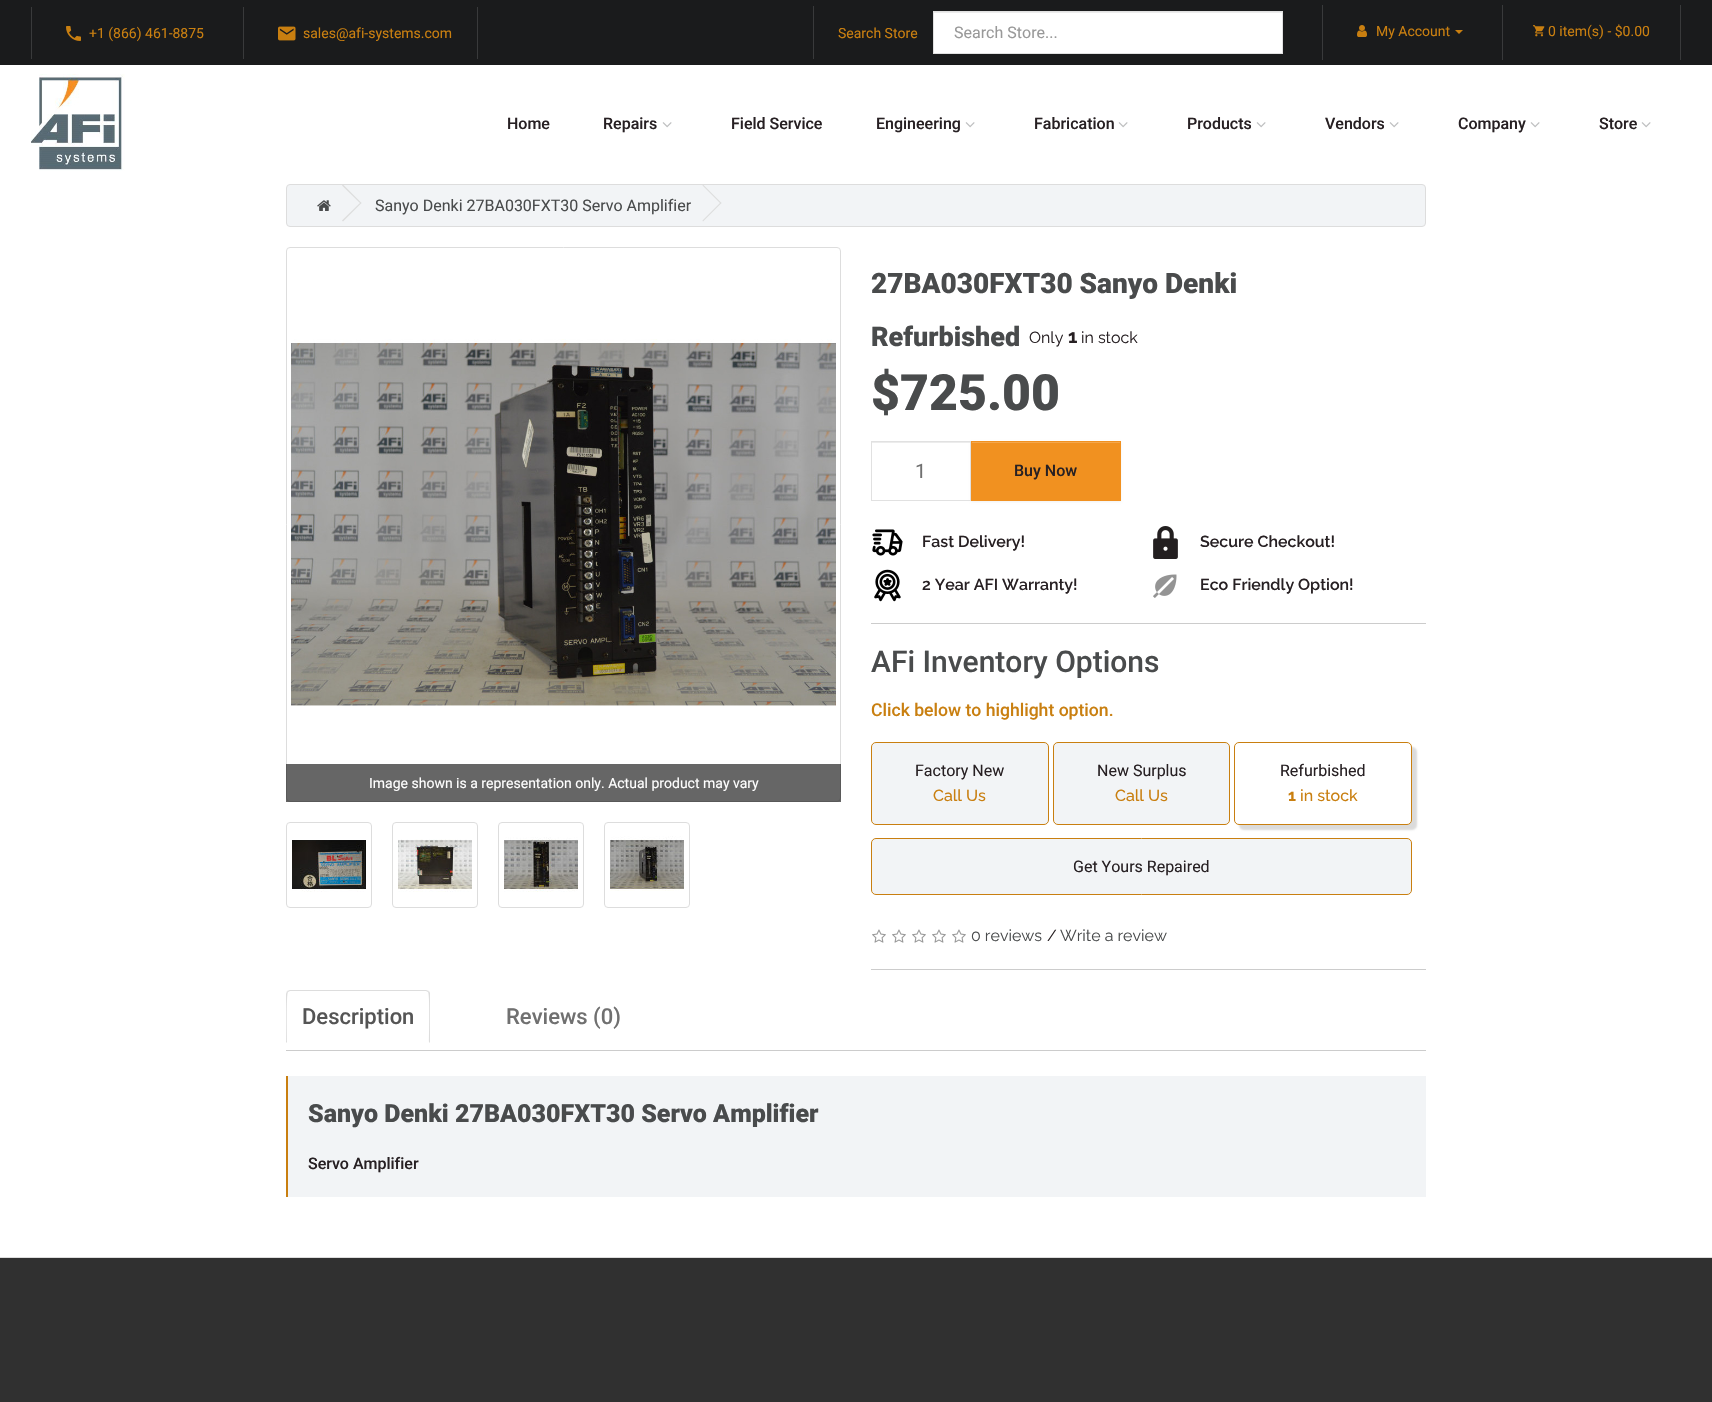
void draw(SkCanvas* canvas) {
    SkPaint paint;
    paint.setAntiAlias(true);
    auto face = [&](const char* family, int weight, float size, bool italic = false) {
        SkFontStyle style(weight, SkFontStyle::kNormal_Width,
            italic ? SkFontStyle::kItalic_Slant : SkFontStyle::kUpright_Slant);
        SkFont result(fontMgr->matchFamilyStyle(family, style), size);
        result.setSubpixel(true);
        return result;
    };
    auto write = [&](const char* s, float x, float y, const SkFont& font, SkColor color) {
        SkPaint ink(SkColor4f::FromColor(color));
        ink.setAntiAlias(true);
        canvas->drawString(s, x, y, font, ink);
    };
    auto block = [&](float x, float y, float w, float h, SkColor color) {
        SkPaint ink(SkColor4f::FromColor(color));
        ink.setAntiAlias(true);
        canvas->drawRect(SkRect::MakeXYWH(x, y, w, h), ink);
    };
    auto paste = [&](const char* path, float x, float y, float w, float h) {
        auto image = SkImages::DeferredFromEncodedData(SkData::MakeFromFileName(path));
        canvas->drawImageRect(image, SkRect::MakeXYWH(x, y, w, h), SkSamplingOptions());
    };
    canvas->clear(SK_ColorWHITE);
    block(0, 0, 1712, 65, SkColorSetRGB(26, 27, 28));
    block(31, 7, 1, 52, SkColorSetRGB(57, 58, 59));
    paste("pic1.png", 66, 26, 15, 15);
    auto kFont1 = face("Roboto", 400, 14);
    write("+1 (866) 461-8875", 89, 38, kFont1, SkColorSetRGB(201, 127, 16));
    block(477, 7, 1, 52, SkColorSetRGB(57, 58, 59));
    block(243, 7, 1, 52, SkColorSetRGB(57, 58, 59));
    paste("pic2.png", 278, 26, 18, 15);
    write("sales@afi-systems.com", 303, 38, kFont1, SkColorSetRGB(201, 127, 16));
    block(813, 6, 1, 53, SkColorSetRGB(57, 58, 59));
    write("Search Store", 838, 38, kFont1, SkColorSetRGB(201, 127, 16));
    block(934, 13, 348, 40, SK_ColorWHITE);
    block(934, 12, 348, 1, SkColorSetRGB(236, 236, 236));
    paint.setStyle(SkPaint::kStroke_Style);
    paint.setStrokeWidth(1);
    paint.setColor(SkColorSetRGB(225, 225, 225));
    canvas->drawRect(SkRect::MakeXYWH(933.5f, 11.5f, 349, 42), paint);
    auto kFont2 = face("Roboto", 400, 16);
    write("Search Store...", 954, 38, kFont2, SkColorSetRGB(153, 153, 153));
    block(1322, 5, 1, 55, SkColorSetRGB(57, 58, 59));
    paste("pic3.png", 1357, 25, 10, 12);
    write("My Account", 1376, 36, kFont1, SkColorSetRGB(201, 127, 16));
    paint.setStyle(SkPaint::kFill_Style);
    paint.setColor(SkColorSetRGB(201, 127, 16));
    canvas->drawPath(SkPathBuilder().moveTo(1455, 30).lineTo(1463, 30).lineTo(1459, 34).close().detach(), paint);
    block(1680, 5, 1, 55, SkColorSetRGB(57, 58, 59));
    block(1502, 5, 1, 55, SkColorSetRGB(57, 58, 59));
    paste("pic4.png", 1533, 25, 12, 12);
    write("0 item(s) - $0.00", 1548, 36, kFont1, SkColorSetRGB(201, 127, 16));
    paste("pic5.png", 31, 74, 94, 97);
    auto kFont3 = face("Roboto", 500, 16);
    write("Home", 507, 129, kFont3, SkColorSetRGB(39, 32, 35));
    write("Repairs", 603, 129, kFont3, SkColorSetRGB(39, 32, 35));
    paste("pic6.png", 662, 122, 10, 6);
    write("Field Service", 731, 129, kFont3, SkColorSetRGB(39, 32, 35));
    write("Engineering", 876, 129, kFont3, SkColorSetRGB(39, 32, 35));
    paste("pic6.png", 965, 122, 10, 6);
    write("Fabrication", 1034, 129, kFont3, SkColorSetRGB(39, 32, 35));
    paste("pic6.png", 1118, 122, 10, 6);
    write("Products", 1187, 129, kFont3, SkColorSetRGB(39, 32, 35));
    paste("pic6.png", 1256, 122, 10, 6);
    write("Vendors", 1325, 129, kFont3, SkColorSetRGB(39, 32, 35));
    paste("pic6.png", 1389, 122, 10, 6);
    write("Company", 1458, 129, kFont3, SkColorSetRGB(39, 32, 35));
    paste("pic6.png", 1530, 122, 10, 6);
    write("Store", 1599, 129, kFont3, SkColorSetRGB(39, 32, 35));
    paste("pic6.png", 1641, 122, 10, 6);
    paint.setColor(SkColorSetRGB(242, 244, 246));
    canvas->drawRoundRect(SkRect::MakeXYWH(286.5f, 184.5f, 1139, 42), 3.5f, 3.5f, paint);
    paint.setStyle(SkPaint::kStroke_Style);
    paint.setColor(SkColorSetRGB(221, 221, 221));
    canvas->drawRoundRect(SkRect::MakeXYWH(286.5f, 184.5f, 1139, 42), 3.5f, 3.5f, paint);
    paste("pic7.png", 317, 200, 14, 11);
    paint.setStyle(SkPaint::kFill_Style);
    canvas->drawPath(SkPathBuilder().moveTo(342, 185.5f).lineTo(343, 184.5f).lineTo(361.5f, 203).lineTo(360.5f, 203.5f).close().detach(), paint);
    canvas->drawPath(SkPathBuilder().moveTo(342, 220.5f).lineTo(360.5f, 202.5f).lineTo(361.5f, 203).lineTo(343, 221.5f).close().detach(), paint);
    write("Sanyo Denki 27BA030FXT30 Servo Amplifier", 375, 211, kFont2, SkColorSetRGB(73, 75, 76));
    canvas->drawPath(SkPathBuilder().moveTo(702.5f, 185.5f).lineTo(703, 184.5f).lineTo(721.5f, 203).lineTo(720.5f, 203.5f).close().detach(), paint);
    canvas->drawPath(SkPathBuilder().moveTo(702.5f, 220.5f).lineTo(720.5f, 202.5f).lineTo(721.5f, 203).lineTo(703, 221.5f).close().detach(), paint);
    paint.setStyle(SkPaint::kStroke_Style);
    canvas->drawRoundRect(SkRect::MakeXYWH(286.5f, 247.5f, 554, 554), 3.5f, 3.5f, paint);
    paste("pic8.png", 291, 339, 545, 367);
    block(286, 764, 555, 38, SkColorSetARGB(153, 0, 0, 0));
    write("Image shown is a representation only. Actual product may vary", 369, 788, kFont1, SK_ColorWHITE);
    canvas->drawRoundRect(SkRect::MakeXYWH(286.5f, 822.5f, 85, 85), 3.5f, 3.5f, paint);
    paste("pic9.png", 292, 840, 74, 52);
    canvas->drawRoundRect(SkRect::MakeXYWH(392.5f, 822.5f, 85, 85), 3.5f, 3.5f, paint);
    paste("pic10.png", 398, 839, 74, 53);
    canvas->drawRoundRect(SkRect::MakeXYWH(498.5f, 822.5f, 85, 85), 3.5f, 3.5f, paint);
    paste("pic11.png", 504, 837, 74, 55);
    canvas->drawRoundRect(SkRect::MakeXYWH(604.5f, 822.5f, 85, 85), 3.5f, 3.5f, paint);
    paste("pic12.png", 610, 836, 74, 55);
    auto kFont4 = face("Roboto", 900, 28);
    write("27BA030FXT30 Sanyo Denki", 871, 293, kFont4, SkColorSetRGB(73, 75, 76));
    auto kFont5 = face("Roboto", 900, 27);
    write("Refurbished", 871, 346, kFont5, SkColorSetRGB(73, 75, 76));
    auto kFont6 = face("Raleway", 400, 16);
    write("Only", 1029, 343, kFont6, SkColorSetRGB(39, 32, 35));
    auto kFont7 = face("Raleway", 700, 19);
    write("1", 1068, 343, kFont7, SkColorSetRGB(39, 32, 35));
    write("in stock", 1081, 343, kFont6, SkColorSetRGB(39, 32, 35));
    auto kFont8 = face("Roboto", 900, 50);
    write("$725.00", 871, 410, kFont8, SkColorSetRGB(73, 75, 76));
    paint.setStyle(SkPaint::kFill_Style);
    paint.setColor(SkColorSetARGB(13, 0, 0, 0));
    paint.setMaskFilter(SkMaskFilter::MakeBlur(kNormal_SkBlurStyle, 1));
    canvas->drawRect(SkRect::MakeXYWH(971, 442, 150, 60), paint);
    paint.setMaskFilter(nullptr);
    block(872, 442, 98, 1, SkColorSetRGB(236, 236, 236));
    paint.setStyle(SkPaint::kStroke_Style);
    paint.setColor(SkColorSetRGB(225, 225, 225));
    canvas->drawRect(SkRect::MakeXYWH(871.5f, 441.5f, 99, 59), paint);
    auto kFont9 = face("Roboto", 400, 20);
    write("1", 915, 478, kFont9, SkColorSetRGB(112, 112, 112));
    block(971, 441, 150, 60, SkColorSetRGB(241, 145, 32));
    block(972, 442, 148, 1, SkColorSetRGB(244, 167, 77));
    write("Buy Now", 1014, 476, kFont3, SkColorSetRGB(39, 32, 35));
    paste("pic13.png", 872, 529, 31, 27);
    auto kFont10 = face("Raleway", 600, 16);
    write("Fast Delivery!", 922, 547, kFont10, SkColorSetRGB(39, 32, 35));
    paste("pic14.png", 874, 569, 27, 33);
    write("2 Year AFI Warranty!", 922, 590, kFont10, SkColorSetRGB(39, 32, 35));
    paste("pic15.png", 1153, 526, 25, 33);
    write("Secure Checkout!", 1200, 547, kFont10, SkColorSetRGB(39, 32, 35));
    paste("pic16.png", 1153, 574, 24, 24);
    write("Eco Friendly Option!", 1200, 590, kFont10, SkColorSetRGB(39, 32, 35));
    block(871, 623, 555, 1, SkColorSetRGB(204, 204, 204));
    auto kFont11 = face("Roboto", 500, 30);
    write("AFi Inventory Options", 871, 672, kFont11, SkColorSetRGB(73, 75, 76));
    auto kFont12 = face("Roboto", 500, 17.6f);
    write("Click below to highlight option.", 871, 716, kFont12, SkColorSetRGB(201, 127, 16));
    paint.setStyle(SkPaint::kFill_Style);
    paint.setColor(SkColorSetRGB(242, 244, 246));
    canvas->drawRoundRect(SkRect::MakeXYWH(871.5f, 742.5f, 177, 82), 4.5f, 4.5f, paint);
    paint.setStyle(SkPaint::kStroke_Style);
    paint.setColor(SkColorSetRGB(201, 127, 16));
    canvas->drawRoundRect(SkRect::MakeXYWH(871.5f, 742.5f, 177, 82), 4.5f, 4.5f, paint);
    write("Factory New", 915, 776, kFont2, SkColorSetRGB(39, 32, 35));
    auto kFont13 = face("Raleway", 500, 16);
    write("Call Us", 933, 801, kFont13, SkColorSetRGB(201, 127, 16));
    paint.setStyle(SkPaint::kFill_Style);
    paint.setColor(SkColorSetRGB(242, 244, 246));
    canvas->drawRoundRect(SkRect::MakeXYWH(1053.5f, 742.5f, 176, 82), 4.5f, 4.5f, paint);
    paint.setStyle(SkPaint::kStroke_Style);
    paint.setColor(SkColorSetRGB(201, 127, 16));
    canvas->drawRoundRect(SkRect::MakeXYWH(1053.5f, 742.5f, 176, 82), 4.5f, 4.5f, paint);
    write("New Surplus", 1097, 776, kFont2, SkColorSetRGB(39, 32, 35));
    write("Call Us", 1115, 801, kFont13, SkColorSetRGB(201, 127, 16));
    paint.setStyle(SkPaint::kFill_Style);
    paint.setColor(SkColorSetARGB(199, 209, 209, 209));
    paint.setMaskFilter(SkMaskFilter::MakeBlur(kNormal_SkBlurStyle, 1));
    canvas->drawRoundRect(SkRect::MakeXYWH(1239, 747, 178, 83), 5, 5, paint);
    paint.setMaskFilter(nullptr);
    paint.setColor(SK_ColorWHITE);
    canvas->drawRoundRect(SkRect::MakeXYWH(1234.5f, 742.5f, 177, 82), 4.5f, 4.5f, paint);
    paint.setStyle(SkPaint::kStroke_Style);
    paint.setColor(SkColorSetRGB(201, 127, 16));
    canvas->drawRoundRect(SkRect::MakeXYWH(1234.5f, 742.5f, 177, 82), 4.5f, 4.5f, paint);
    write("Refurbished", 1280, 776, kFont2, SkColorSetRGB(39, 32, 35));
    auto kFont14 = face("Raleway", 700, 16);
    write("1", 1288, 801, kFont14, SkColorSetRGB(201, 127, 16));
    write("in stock", 1300, 801, kFont13, SkColorSetRGB(201, 127, 16));
    paint.setStyle(SkPaint::kFill_Style);
    paint.setColor(SkColorSetRGB(242, 244, 246));
    canvas->drawRoundRect(SkRect::MakeXYWH(871.5f, 838.5f, 540, 56), 4.5f, 4.5f, paint);
    paint.setStyle(SkPaint::kStroke_Style);
    paint.setColor(SkColorSetRGB(201, 127, 16));
    canvas->drawRoundRect(SkRect::MakeXYWH(871.5f, 838.5f, 540, 56), 4.5f, 4.5f, paint);
    write("Get Yours Repaired", 1073, 872, kFont2, SkColorSetRGB(39, 32, 35));
    paste("pic17.png", 872, 929, 14, 14);
    paste("pic17.png", 892, 929, 14, 14);
    paste("pic17.png", 912, 929, 14, 14);
    paste("pic17.png", 932, 929, 14, 14);
    paste("pic17.png", 952, 929, 14, 14);
    write("0 reviews", 971, 941, kFont6, SkColorSetRGB(73, 75, 76));
    write("/", 1047, 941, kFont6, SkColorSetRGB(39, 32, 35));
    write("Write a review", 1060, 941, kFont6, SkColorSetRGB(73, 75, 76));
    block(871, 969, 555, 1, SkColorSetRGB(204, 204, 204));
    block(286, 1050, 1140, 1, SkColorSetRGB(204, 204, 204));
    paint.setStyle(SkPaint::kFill_Style);
    paint.setColor(SkColorSetRGB(221, 221, 221));
    canvas->drawPath(SkPathBuilder().moveTo(290, 990).lineTo(287, 991).lineTo(288, 992).lineTo(290, 991).lineTo(426, 991).lineTo(428, 992).lineTo(429, 991).lineTo(426, 990).close().detach(), paint);
    canvas->drawPath(SkPathBuilder().moveTo(430, 1043).lineTo(430, 993).lineTo(429, 991).lineTo(428, 992).cubicTo(430, 994, 429, 1036, 429, 1042).close().detach(), paint);
    canvas->drawPath(SkPathBuilder().moveTo(286, 1043).lineTo(287, 1042).cubicTo(287, 1036, 286, 994, 288, 992).lineTo(287, 991).lineTo(286, 994).close().detach(), paint);
    auto kFont15 = face("Roboto", 500, 22);
    write("Description", 302, 1024, kFont15, SkColorSetRGB(85, 85, 85));
    write("Reviews (0)", 506, 1024, kFont15, SkColorSetRGB(112, 112, 112));
    block(288, 1076, 1138, 121, SkColorSetRGB(242, 244, 246));
    block(286, 1076, 2, 121, SkColorSetRGB(201, 127, 16));
    auto kFont16 = face("Roboto", 900, 25);
    write("Sanyo Denki 27BA030FXT30 Servo Amplifier", 308, 1122, kFont16, SkColorSetRGB(73, 75, 76));
    write("Servo Amplifier", 308, 1169, kFont3, SkColorSetRGB(39, 32, 35));
    block(0, 1258, 1712, 144, SkColorSetRGB(48, 48, 48));
    block(0, 1257, 1712, 1, SkColorSetRGB(221, 221, 221));
}
